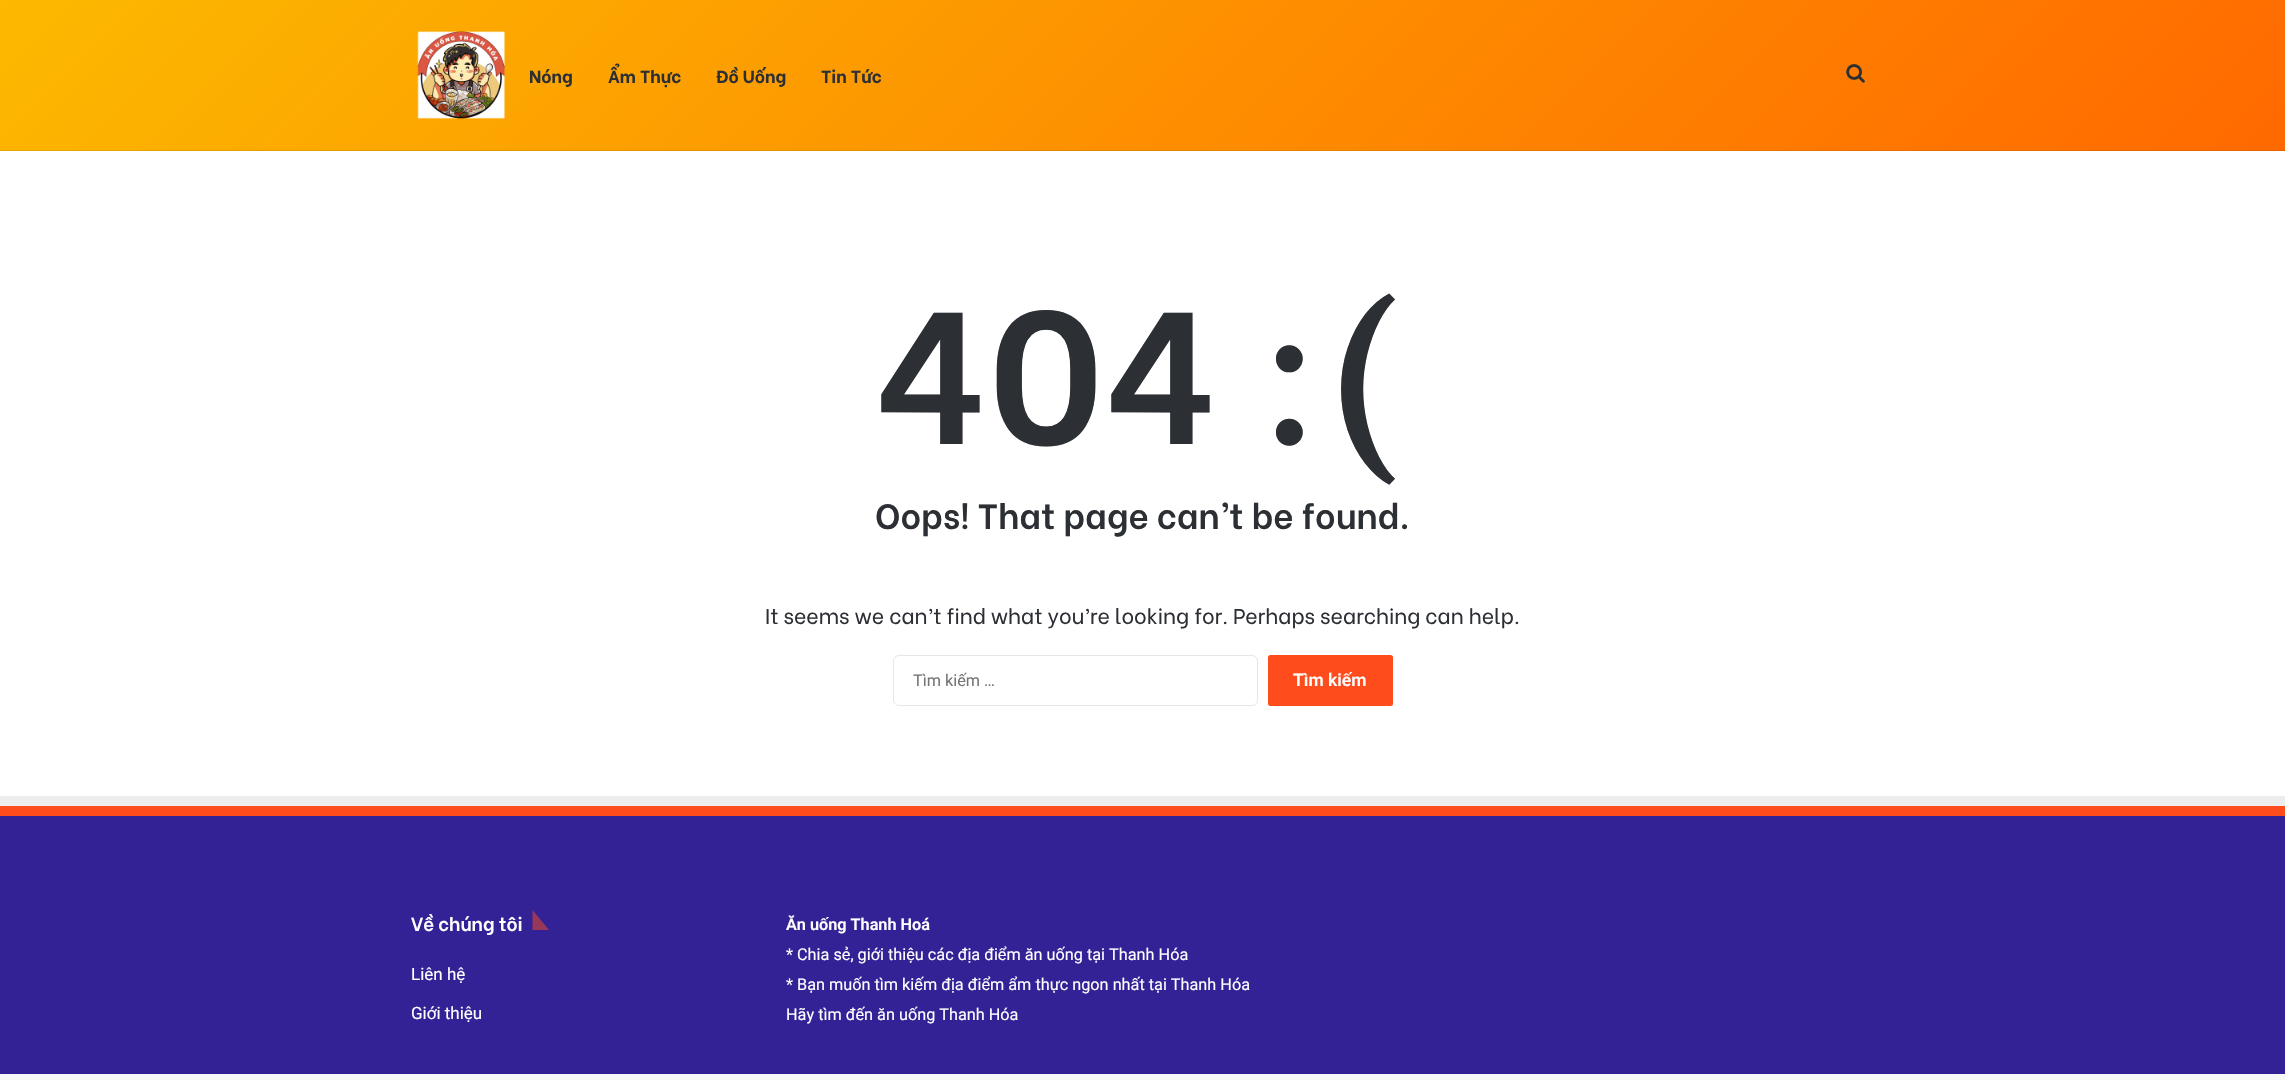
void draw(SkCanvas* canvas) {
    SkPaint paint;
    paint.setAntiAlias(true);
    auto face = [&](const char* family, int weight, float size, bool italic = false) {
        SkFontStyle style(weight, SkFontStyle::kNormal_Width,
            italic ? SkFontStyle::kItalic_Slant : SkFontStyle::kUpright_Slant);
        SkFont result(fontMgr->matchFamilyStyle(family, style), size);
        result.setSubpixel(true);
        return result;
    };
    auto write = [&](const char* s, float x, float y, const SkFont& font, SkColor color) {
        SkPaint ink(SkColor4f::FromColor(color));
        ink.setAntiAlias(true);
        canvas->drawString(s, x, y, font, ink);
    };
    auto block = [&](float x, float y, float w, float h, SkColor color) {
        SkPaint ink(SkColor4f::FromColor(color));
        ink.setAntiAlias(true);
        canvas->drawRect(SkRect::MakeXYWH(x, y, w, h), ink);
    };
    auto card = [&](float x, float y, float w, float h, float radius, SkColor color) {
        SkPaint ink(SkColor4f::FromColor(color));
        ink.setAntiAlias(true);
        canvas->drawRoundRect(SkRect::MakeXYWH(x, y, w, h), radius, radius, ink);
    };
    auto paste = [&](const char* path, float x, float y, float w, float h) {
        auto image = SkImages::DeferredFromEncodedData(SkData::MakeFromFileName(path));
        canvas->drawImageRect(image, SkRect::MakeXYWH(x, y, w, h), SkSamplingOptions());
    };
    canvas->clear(SkColorSetRGB(247, 248, 248));
    block(0, 151, 2285, 645, SK_ColorWHITE);
    {
        const SkColor colors[] = {SkColorSetRGB(252, 185, 0), SkColorSetRGB(255, 105, 0)};
        const float stops[] = {0, 1};
        const SkPoint ends[] = {{534, -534}, {1751, 684}};
        paint.setShader(SkGradientShader::MakeLinear(ends, colors, stops, 2, SkTileMode::kClamp));
        paint.setAlpha(255);
    }
    canvas->drawRect(SkRect::MakeXYWH(0, 0, 2285, 150), paint);
    {
        const SkColor colors[] = {SkColorSetRGB(227, 167, 0), SkColorSetRGB(230, 95, 0)};
        const float stops[] = {0, 1};
        const SkPoint ends[] = {{534, -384}, {1751, 834}};
        paint.setShader(SkGradientShader::MakeLinear(ends, colors, stops, 2, SkTileMode::kClamp));
        paint.setAlpha(255);
    }
    canvas->drawRect(SkRect::MakeXYWH(0, 150, 2285, 1), paint);
    paste("pic1.png", 417, 31, 88, 88);
    auto kFont1 = face("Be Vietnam", 700, 17.5f);
    write("Nóng", 529, 83, kFont1, SkColorSetRGB(44, 47, 52));
    write("Ẩm Thực", 608, 83, kFont1, SkColorSetRGB(44, 47, 52));
    write("Đồ Uống", 716, 83, kFont1, SkColorSetRGB(44, 47, 52));
    write("Tin Tức", 821, 83, kFont1, SkColorSetRGB(44, 47, 52));
    paste("pic2.png", 1846, 64, 19, 19);
    auto kFont2 = face("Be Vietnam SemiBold", 600, 187.5f);
    write("404 :(", 874, 444, kFont2, SkColorSetRGB(44, 47, 52));
    auto kFont3 = face("Be Vietnam SemiBold", 600, 35);
    write("Oops! That page can’t be found.", 875, 529, kFont3, SkColorSetRGB(44, 47, 52));
    auto kFont4 = face("Be Vietnam", 400, 21.25f);
    write("It seems we can’t find what you’re looking for. Perhaps searching can help.", 765, 624, kFont4, SkColorSetRGB(44, 47, 52));
    paint.setStyle(SkPaint::kStroke_Style);
    paint.setStrokeWidth(1);
    paint.setShader(nullptr);
    paint.setColor(SkColorSetRGB(230, 230, 230));
    canvas->drawRoundRect(SkRect::MakeXYWH(893.5f, 655.5f, 364, 50), 5.5f, 5.5f, paint);
    auto kFont5 = face("Roboto", 400, 16.25f);
    write("Tìm kiếm …", 913, 686, kFont5, SkColorSetRGB(117, 117, 117));
    card(1268, 655, 125, 51, 2.5f, SkColorSetRGB(254, 76, 28));
    auto kFont6 = face("Roboto", 600, 17.5f);
    write("Tìm kiếm", 1293, 686, kFont6, SK_ColorWHITE);
    block(0, 816, 2285, 258, SkColorSetRGB(51, 34, 149));
    block(0, 796, 2285, 10, SkColorSetRGB(237, 237, 237));
    block(0, 806, 2285, 10, SkColorSetRGB(254, 76, 28));
    auto kFont7 = face("Be Vietnam SemiBold", 600, 18.75f);
    write("Về chúng tôi", 411, 931, kFont7, SK_ColorWHITE);
    paint.setStyle(SkPaint::kFill_Style);
    paint.setColor(SkColorSetRGB(151, 55, 89));
    canvas->drawPath(SkPathBuilder().moveTo(532.5f, 930).lineTo(532.5f, 910).lineTo(549, 930).close().detach(), paint);
    auto kFont8 = face("Roboto", 400, 17);
    write("Liên hệ", 411, 980, kFont8, SK_ColorWHITE);
    write("Giới thiệu", 411, 1019, kFont8, SK_ColorWHITE);
    auto kFont9 = face("Roboto", 600, 16.25f);
    write("Ăn uống Thanh Hoá", 786, 930, kFont9, SK_ColorWHITE);
    write("* Chia sẻ, giới thiệu các địa điểm ăn uống tại Thanh Hóa", 786, 960, kFont5, SK_ColorWHITE);
    write("* Bạn muốn tìm kiếm địa điểm ẩm thực ngon nhất tại Thanh Hóa", 786, 990, kFont5, SK_ColorWHITE);
    write("Hãy tìm đến ăn uống Thanh Hóa", 786, 1020, kFont5, SK_ColorWHITE);
}
